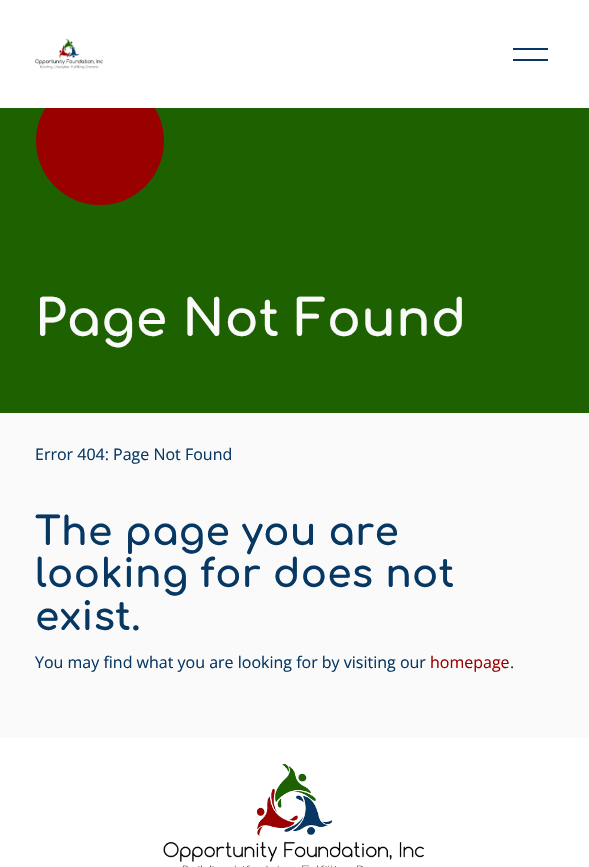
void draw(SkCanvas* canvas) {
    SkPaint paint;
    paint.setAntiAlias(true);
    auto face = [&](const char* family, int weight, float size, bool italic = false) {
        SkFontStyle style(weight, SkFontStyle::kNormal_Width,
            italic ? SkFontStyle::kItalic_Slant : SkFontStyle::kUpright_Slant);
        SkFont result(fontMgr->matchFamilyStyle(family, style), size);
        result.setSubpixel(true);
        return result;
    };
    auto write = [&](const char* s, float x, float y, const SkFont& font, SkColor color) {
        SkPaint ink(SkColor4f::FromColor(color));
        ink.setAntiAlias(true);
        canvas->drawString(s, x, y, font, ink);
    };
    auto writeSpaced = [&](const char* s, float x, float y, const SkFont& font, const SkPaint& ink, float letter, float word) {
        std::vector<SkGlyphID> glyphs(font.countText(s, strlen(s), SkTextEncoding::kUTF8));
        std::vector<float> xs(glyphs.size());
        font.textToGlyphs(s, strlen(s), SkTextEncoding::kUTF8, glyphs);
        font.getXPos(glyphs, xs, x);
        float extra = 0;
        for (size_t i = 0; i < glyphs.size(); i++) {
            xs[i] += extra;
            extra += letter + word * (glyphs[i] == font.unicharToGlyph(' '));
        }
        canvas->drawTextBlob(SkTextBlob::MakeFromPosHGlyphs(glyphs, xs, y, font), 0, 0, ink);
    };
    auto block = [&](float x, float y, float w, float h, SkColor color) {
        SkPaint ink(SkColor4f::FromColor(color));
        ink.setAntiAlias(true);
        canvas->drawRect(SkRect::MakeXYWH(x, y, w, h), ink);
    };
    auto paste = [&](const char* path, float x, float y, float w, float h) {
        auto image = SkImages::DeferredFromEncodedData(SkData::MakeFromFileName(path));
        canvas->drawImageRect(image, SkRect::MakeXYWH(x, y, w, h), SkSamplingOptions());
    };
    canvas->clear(SkColorSetRGB(250, 250, 250));
    block(0, 108, 589, 305, SkColorSetRGB(29, 97, 0));
    paint.setColor(SkColorSetRGB(153, 0, 0));
    canvas->drawCircle(100, 141, 64, paint);
    block(0, 0, 589, 108, SK_ColorWHITE);
    paste("pic1.png", 35, 38, 68, 31);
    block(513, 48, 35, 2, SkColorSetRGB(7, 55, 99));
    block(513, 59, 35, 2, SkColorSetRGB(7, 55, 99));
    auto kFont1 = face("Comfortaa", 700, 50.25f);
    paint.setColor(SkColorSetRGB(250, 250, 250));
    writeSpaced("Page Not Found", 35, 336, kFont1, paint, 0.5f, 0);
    auto kFont2 = face("Open Sans", 400, 16);
    write("Error 404: Page Not Found", 35, 460, kFont2, SkColorSetRGB(7, 55, 99));
    auto kFont3 = face("Comfortaa", 700, 38.9f);
    paint.setColor(SkColorSetRGB(7, 55, 99));
    writeSpaced("The page you are", 35, 545, kFont3, paint, 0.4f, 0);
    writeSpaced("looking for does not", 35, 587, kFont3, paint, 0.4f, 0);
    writeSpaced("exist.", 35, 630, kFont3, paint, 0.4f, 0);
    write("You may find what you are looking for by visiting our", 35, 668, kFont2, SkColorSetRGB(7, 55, 99));
    write("homepage", 430, 668, kFont2, SkColorSetRGB(153, 0, 0));
    write(".", 510, 668, kFont2, SkColorSetRGB(7, 55, 99));
    block(0, 738, 589, 129, SK_ColorWHITE);
    paste("pic2.png", 163, 764, 261, 103);
}
